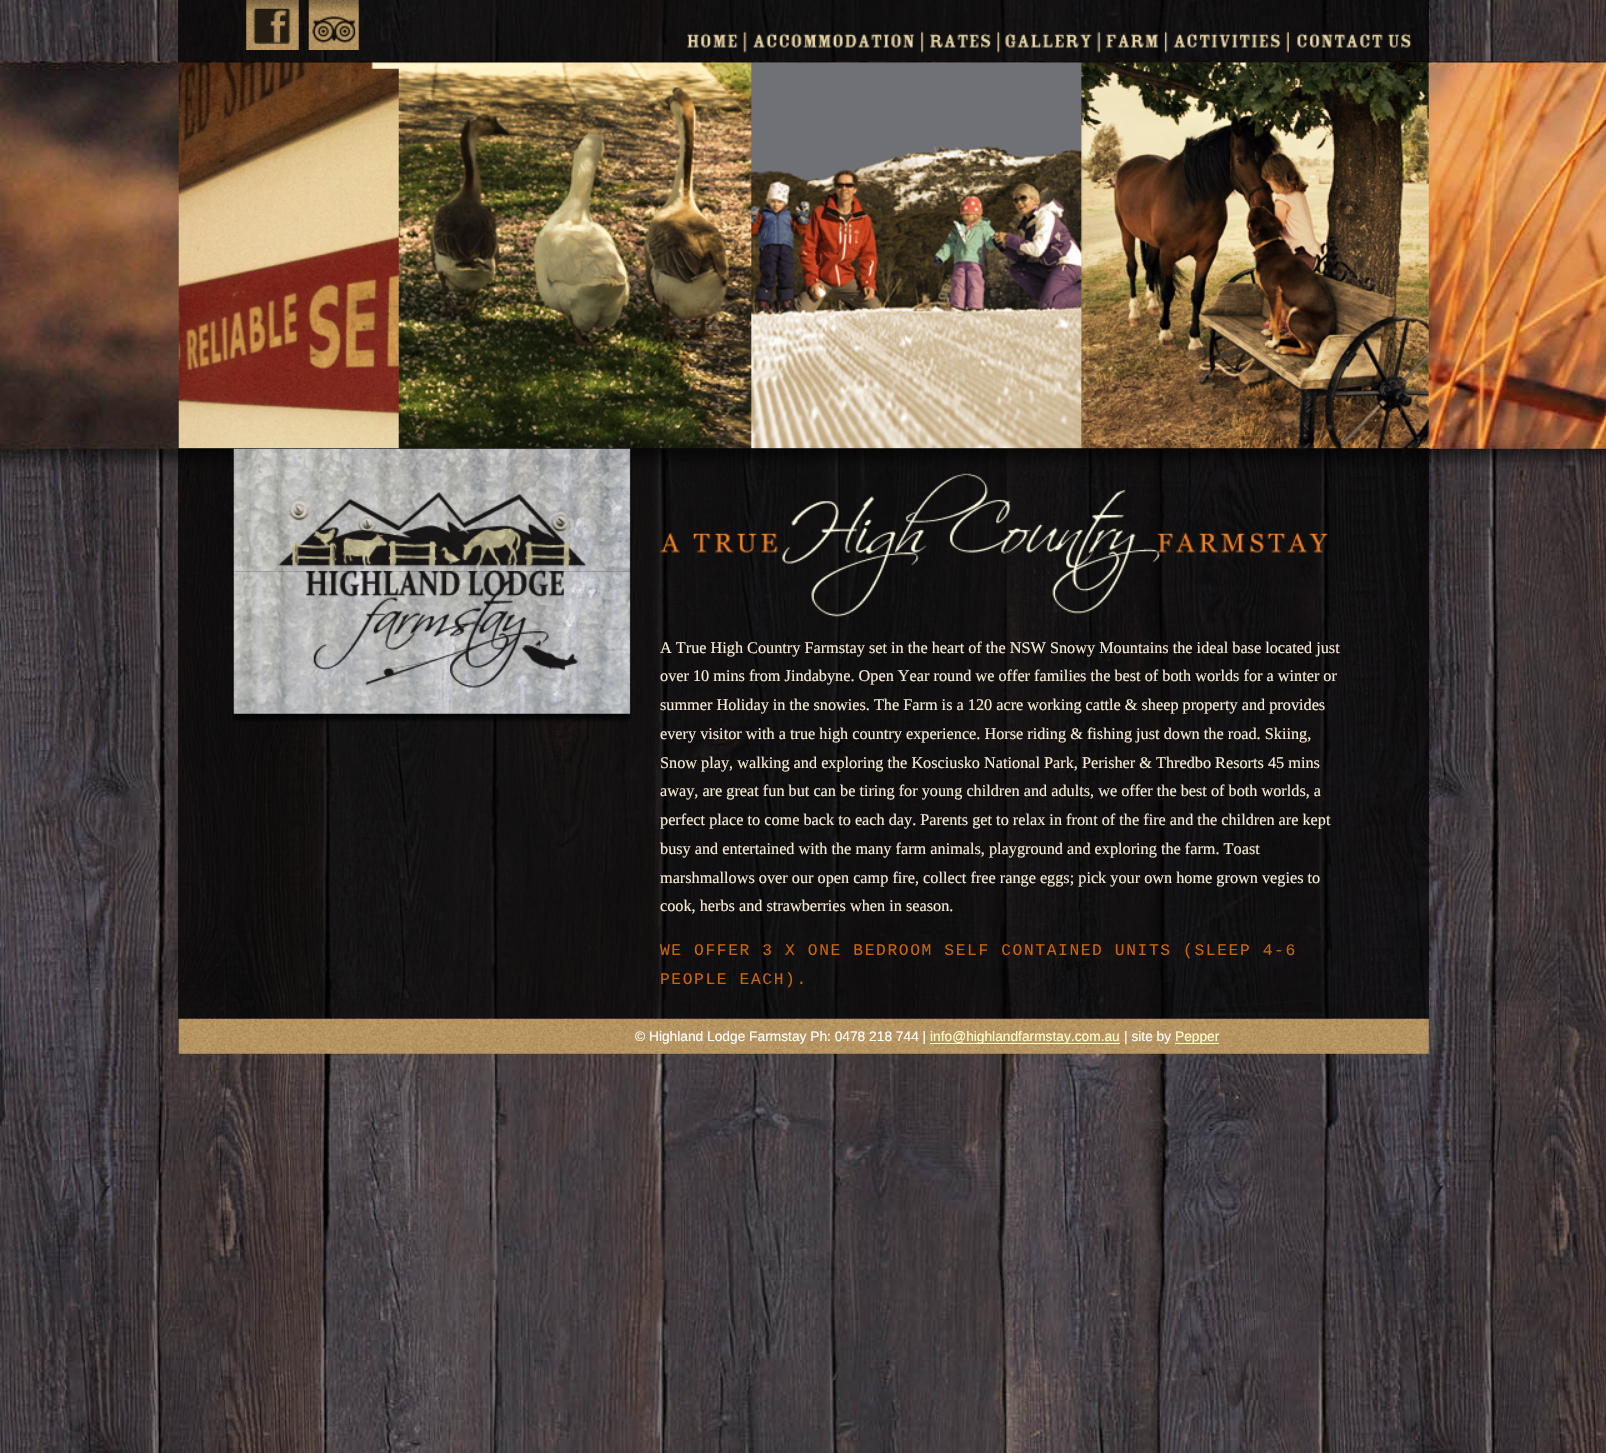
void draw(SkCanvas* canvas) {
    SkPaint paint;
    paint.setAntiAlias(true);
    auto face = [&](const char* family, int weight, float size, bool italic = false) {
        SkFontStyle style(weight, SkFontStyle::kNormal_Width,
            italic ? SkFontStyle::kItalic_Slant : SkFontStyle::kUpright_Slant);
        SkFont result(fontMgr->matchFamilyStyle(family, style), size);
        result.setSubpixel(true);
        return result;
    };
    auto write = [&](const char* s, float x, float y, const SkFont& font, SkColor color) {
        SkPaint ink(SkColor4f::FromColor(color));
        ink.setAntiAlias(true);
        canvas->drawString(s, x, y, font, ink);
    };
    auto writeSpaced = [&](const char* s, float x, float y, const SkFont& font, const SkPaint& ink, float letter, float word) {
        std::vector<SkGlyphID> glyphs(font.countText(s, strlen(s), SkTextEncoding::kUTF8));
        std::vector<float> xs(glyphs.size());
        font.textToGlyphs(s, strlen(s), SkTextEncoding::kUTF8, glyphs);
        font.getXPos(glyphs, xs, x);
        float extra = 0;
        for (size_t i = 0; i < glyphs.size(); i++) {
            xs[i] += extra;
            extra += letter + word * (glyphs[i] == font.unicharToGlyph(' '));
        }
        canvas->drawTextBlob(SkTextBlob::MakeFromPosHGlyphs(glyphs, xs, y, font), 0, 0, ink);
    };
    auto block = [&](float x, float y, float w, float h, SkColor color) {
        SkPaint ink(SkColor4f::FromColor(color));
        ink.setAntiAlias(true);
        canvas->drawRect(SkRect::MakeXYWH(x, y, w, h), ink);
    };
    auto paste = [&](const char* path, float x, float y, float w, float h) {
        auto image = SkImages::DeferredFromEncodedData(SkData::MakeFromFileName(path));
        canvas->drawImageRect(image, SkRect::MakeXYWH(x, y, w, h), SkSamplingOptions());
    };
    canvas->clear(SK_ColorWHITE);
    paste("pic1.png", 0, 0, 1606, 1453);
    block(178, 0, 457, 63, SkColorSetARGB(191, 0, 0, 0));
    paste("pic2.png", 246, 0, 53, 50);
    paste("pic3.png", 308, 0, 51, 50);
    block(635, 0, 794, 63, SkColorSetARGB(191, 0, 0, 0));
    paste("pic4.png", 687, 31, 60, 22);
    paste("pic5.png", 752, 31, 172, 22);
    paste("pic6.png", 929, 31, 72, 22);
    paste("pic7.png", 1004, 31, 97, 22);
    paste("pic8.png", 1106, 31, 62, 22);
    paste("pic9.png", 1173, 31, 116, 22);
    paste("pic10.png", 1297, 33, 115, 15);
    paste("pic11.png", 178, 62, 1251, 387);
    block(178, 448, 457, 571, SkColorSetARGB(191, 0, 0, 0));
    paste("pic12.png", 232, 448, 400, 124);
    paste("pic13.png", 232, 571, 400, 151);
    block(635, 448, 794, 571, SkColorSetARGB(191, 0, 0, 0));
    paste("pic14.png", 660, 473, 668, 144);
    auto kFont1 = face("Liberation Serif", 400, 16.25f);
    write("A True High Country Farmstay set in the heart of the NSW Snowy Mountains the ideal base located just", 660, 653, kFont1, SkColorSetRGB(246, 234, 209));
    write("over 10 mins from Jindabyne. Open Year round we offer families the best of both worlds for a winter or", 660, 681, kFont1, SkColorSetRGB(246, 234, 209));
    write("summer Holiday in the snowies. The Farm is a 120 acre working cattle & sheep property and provides", 660, 710, kFont1, SkColorSetRGB(246, 234, 209));
    write("every visitor with a true high country experience. Horse riding & fishing just down the road. Skiing,", 660, 739, kFont1, SkColorSetRGB(246, 234, 209));
    write("Snow play, walking and exploring the Kosciusko National Park, Perisher & Thredbo Resorts 45 mins", 660, 768, kFont1, SkColorSetRGB(246, 234, 209));
    write("away, are great fun but can be tiring for young children and adults, we offer the best of both worlds, a", 660, 796, kFont1, SkColorSetRGB(246, 234, 209));
    write("perfect place to come back to each day. Parents get to relax in front of the fire and the children are kept", 660, 825, kFont1, SkColorSetRGB(246, 234, 209));
    write("busy and entertained with the many farm animals, playground and exploring the farm. Toast", 660, 854, kFont1, SkColorSetRGB(246, 234, 209));
    write("marshmallows over our open camp fire, collect free range eggs; pick your own home grown vegies to", 660, 883, kFont1, SkColorSetRGB(246, 234, 209));
    write("cook, herbs and strawberries when in season.", 660, 911, kFont1, SkColorSetRGB(246, 234, 209));
    auto kFont2 = face("Liberation Mono", 400, 16.25f);
    paint.setColor(SkColorSetRGB(204, 102, 0));
    writeSpaced("WE OFFER 3 X ONE BEDROOM SELF CONTAINED UNITS (SLEEP 4-6", 660, 955, kFont2, paint, 1.62f, 0);
    writeSpaced("PEOPLE EACH).", 660, 984, kFont2, paint, 1.62f, 0);
    paste("pic15.png", 178, 1018, 457, 36);
    paste("pic16.png", 635, 1018, 794, 36);
    auto kFont3 = face("Liberation Sans", 400, 13.75f);
    write("© Highland Lodge Farmstay Ph: 0478 218 744 |", 635, 1041, kFont3, SK_ColorWHITE);
    block(930, 1043, 190, 1, SkColorSetRGB(255, 255, 204));
    write("info@highlandfarmstay.com.au", 930, 1041, kFont3, SkColorSetRGB(255, 255, 204));
    write("| site by", 1124, 1041, kFont3, SK_ColorWHITE);
    block(1175, 1043, 44, 1, SkColorSetRGB(255, 255, 204));
    write("Pepper", 1175, 1041, kFont3, SkColorSetRGB(255, 255, 204));
}
